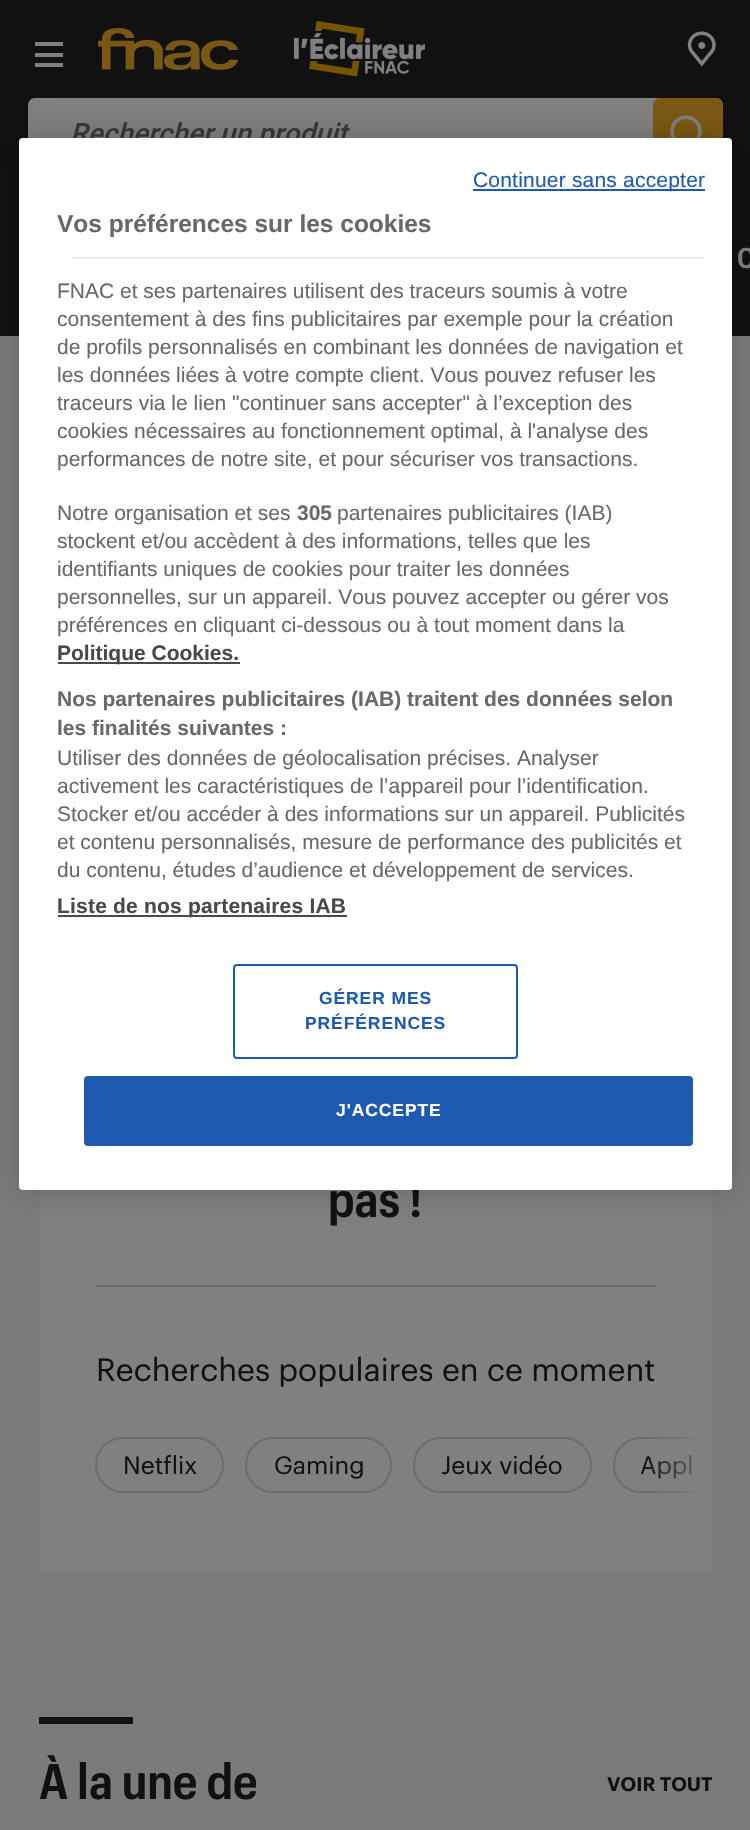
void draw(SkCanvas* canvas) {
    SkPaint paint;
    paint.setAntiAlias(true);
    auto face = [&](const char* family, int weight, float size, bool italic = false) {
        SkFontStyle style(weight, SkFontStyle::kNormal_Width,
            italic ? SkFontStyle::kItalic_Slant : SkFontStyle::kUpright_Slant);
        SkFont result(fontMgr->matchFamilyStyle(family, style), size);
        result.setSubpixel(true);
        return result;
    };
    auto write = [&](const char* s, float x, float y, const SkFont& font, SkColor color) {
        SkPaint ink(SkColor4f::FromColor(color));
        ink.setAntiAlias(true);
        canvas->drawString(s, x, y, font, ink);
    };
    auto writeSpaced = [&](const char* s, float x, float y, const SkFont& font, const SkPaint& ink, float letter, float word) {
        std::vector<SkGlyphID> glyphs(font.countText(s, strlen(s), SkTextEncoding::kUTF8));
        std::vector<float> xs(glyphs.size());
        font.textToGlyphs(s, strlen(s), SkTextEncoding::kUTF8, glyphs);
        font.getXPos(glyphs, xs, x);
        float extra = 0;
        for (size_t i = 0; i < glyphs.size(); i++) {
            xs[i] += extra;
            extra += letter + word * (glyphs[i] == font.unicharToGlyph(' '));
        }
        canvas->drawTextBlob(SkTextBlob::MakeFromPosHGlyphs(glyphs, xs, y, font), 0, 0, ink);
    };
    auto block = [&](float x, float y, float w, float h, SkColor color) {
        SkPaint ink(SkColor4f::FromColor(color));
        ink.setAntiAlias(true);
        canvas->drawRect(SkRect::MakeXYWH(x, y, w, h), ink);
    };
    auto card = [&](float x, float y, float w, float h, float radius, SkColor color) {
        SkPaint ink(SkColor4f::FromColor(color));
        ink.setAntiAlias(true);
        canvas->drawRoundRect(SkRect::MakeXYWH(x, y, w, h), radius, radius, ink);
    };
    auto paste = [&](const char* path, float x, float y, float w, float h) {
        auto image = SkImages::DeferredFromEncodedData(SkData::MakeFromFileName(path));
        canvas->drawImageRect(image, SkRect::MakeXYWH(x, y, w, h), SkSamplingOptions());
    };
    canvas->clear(SkColorSetRGB(124, 123, 121));
    block(0, 0, 750, 336, SkColorSetRGB(17, 17, 17));
    block(35, 42, 28, 4, SkColorSetRGB(128, 128, 128));
    block(35, 53, 28, 4, SkColorSetRGB(128, 128, 128));
    block(35, 63, 28, 4, SkColorSetRGB(128, 128, 128));
    paste("pic1.png", 98, 28, 140, 42);
    paste("pic2.png", 294, 21, 131, 56);
    paste("pic3.png", 687, 31, 29, 36);
    card(28, 98, 695, 70, 7, SkColorSetRGB(128, 128, 128));
    auto kFont1 = face("Roboto", 500, 28, true);
    write("Rechercher un produit", 70, 143, kFont1, SkColorSetRGB(56, 56, 54));
    card(653, 98, 70, 70, 7, SkColorSetRGB(123, 88, 20));
    paste("pic4.png", 670, 115, 32, 23);
    auto kFont2 = face("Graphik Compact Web", 600, 28);
    write("C", 737, 268, kFont2, SkColorSetRGB(128, 128, 128));
    block(39, 1190, 673, 380, SkColorSetRGB(128, 128, 128));
    auto kFont3 = face("Graphik Compact Web", 600, 49);
    write("pas !", 328, 1217, kFont3, SkColorSetRGB(17, 17, 17));
    block(95, 1285, 561, 2, SkColorSetRGB(109, 108, 105));
    auto kFont4 = face("Graphik", 400, 31.5f);
    write("Recherches populaires en ce moment", 96, 1381, kFont4, SkColorSetRGB(17, 17, 17));
    canvas->save();
    canvas->clipRect(SkRect::MakeXYWH(56, 1437, 639, 77));
    paint.setStyle(SkPaint::kStroke_Style);
    paint.setStrokeWidth(2);
    paint.setColor(SkColorSetRGB(109, 108, 105));
    canvas->drawRoundRect(SkRect::MakeXYWH(614, 1438, 120, 54), 27, 27, paint);
    canvas->restore();
    auto kFont5 = face("Graphik", 400, 24.5f);
    write("Appl", 640, 1474, kFont5, SkColorSetRGB(17, 17, 17));
    paint.setStyle(SkPaint::kFill_Style);
    {
        const SkColor colors[] = {SkColorSetARGB(204, 128, 128, 128), SkColorSetARGB(0, 128, 128, 128)};
        const float stops[] = {0, 1};
        const SkPoint ends[] = {{702, 1475}, {646, 1475}};
        paint.setShader(SkGradientShader::MakeLinear(ends, colors, stops, 2, SkTileMode::kClamp));
        paint.setAlpha(255);
    }
    canvas->drawRect(SkRect::MakeXYWH(648, 1437, 47, 56), paint);
    paint.setStyle(SkPaint::kStroke_Style);
    paint.setShader(nullptr);
    paint.setColor(SkColorSetRGB(109, 108, 105));
    canvas->drawRoundRect(SkRect::MakeXYWH(96, 1438, 127, 54), 27, 27, paint);
    write("Netflix", 123, 1474, kFont5, SkColorSetRGB(17, 17, 17));
    canvas->drawRoundRect(SkRect::MakeXYWH(246, 1438, 145, 54), 27, 27, paint);
    write("Gaming", 274, 1474, kFont5, SkColorSetRGB(17, 17, 17));
    canvas->drawRoundRect(SkRect::MakeXYWH(414, 1438, 177, 54), 27, 27, paint);
    write("Jeux vidéo", 441, 1474, kFont5, SkColorSetRGB(17, 17, 17));
    block(39, 1717, 94, 7, SkColorSetRGB(17, 17, 17));
    write("À la une de", 39, 1799, kFont3, SkColorSetRGB(17, 17, 17));
    auto kFont6 = face("Graphik", 600, 19.25f);
    write("VOIR TOUT", 607, 1791, kFont6, SkColorSetRGB(17, 17, 17));
    paint.setStyle(SkPaint::kFill_Style);
    paint.setColor(SkColorSetARGB(51, 0, 0, 0));
    paint.setMaskFilter(SkMaskFilter::MakeBlur(kNormal_SkBlurStyle, 16));
    canvas->drawRoundRect(SkRect::MakeXYWH(19, 138, 713, 1052), 4, 4, paint);
    paint.setMaskFilter(nullptr);
    card(19, 138, 713, 1052, 4, SK_ColorWHITE);
    block(473, 189, 232, 2, SkColorSetRGB(31, 90, 177));
    auto kFont7 = face("Liberation Sans", 400, 21);
    paint.setColor(SkColorSetRGB(31, 90, 177));
    writeSpaced("Continuer sans accepter", 473, 187, kFont7, paint, 0.2f, 0);
    auto kFont8 = face("Liberation Sans", 700, 24.5f);
    write("Vos préférences sur les cookies", 57, 232, kFont8, SkColorSetRGB(105, 105, 105));
    block(72, 257, 632, 2, SkColorSetRGB(236, 236, 236));
    write("FNAC et ses partenaires utilisent des traceurs soumis à votre", 57, 298, kFont7, SkColorSetRGB(105, 105, 105));
    write("consentement à des fins publicitaires par exemple pour la création", 57, 326, kFont7, SkColorSetRGB(105, 105, 105));
    write("de profils personnalisés en combinant les données de navigation et", 57, 354, kFont7, SkColorSetRGB(105, 105, 105));
    write("les données liées à votre compte client. Vous pouvez refuser les", 57, 382, kFont7, SkColorSetRGB(105, 105, 105));
    write("traceurs via le lien \"continuer sans accepter\" à l’exception des", 57, 410, kFont7, SkColorSetRGB(105, 105, 105));
    write("cookies nécessaires au fonctionnement optimal, à l'analyse des", 57, 438, kFont7, SkColorSetRGB(105, 105, 105));
    write("performances de notre site, et pour sécuriser vos transactions.", 57, 466, kFont7, SkColorSetRGB(105, 105, 105));
    write("Notre organisation et ses", 57, 520, kFont7, SkColorSetRGB(105, 105, 105));
    auto kFont9 = face("Liberation Sans", 700, 21);
    write("305", 297, 520, kFont9, SkColorSetRGB(105, 105, 105));
    write("partenaires publicitaires (IAB)", 337, 520, kFont7, SkColorSetRGB(105, 105, 105));
    write("stockent et/ou accèdent à des informations, telles que les", 57, 548, kFont7, SkColorSetRGB(105, 105, 105));
    write("identifiants uniques de cookies pour traiter les données", 57, 576, kFont7, SkColorSetRGB(105, 105, 105));
    write("personnelles, sur un appareil. Vous pouvez accepter ou gérer vos", 57, 604, kFont7, SkColorSetRGB(105, 105, 105));
    write("préférences en cliquant ci-dessous ou à tout moment dans la", 57, 632, kFont7, SkColorSetRGB(105, 105, 105));
    block(58, 662, 182, 2, SkColorSetRGB(73, 73, 73));
    write("Politique Cookies.", 57, 660, kFont9, SkColorSetRGB(73, 73, 73));
    write("Nos partenaires publicitaires (IAB) traitent des données selon", 57, 706, kFont9, SkColorSetRGB(105, 105, 105));
    write("les finalités suivantes :", 57, 735, kFont9, SkColorSetRGB(105, 105, 105));
    write("Utiliser des données de géolocalisation précises. Analyser", 57, 765, kFont7, SkColorSetRGB(105, 105, 105));
    write("activement les caractéristiques de l’appareil pour l’identification.", 57, 793, kFont7, SkColorSetRGB(105, 105, 105));
    write("Stocker et/ou accéder à des informations sur un appareil. Publicités", 57, 821, kFont7, SkColorSetRGB(105, 105, 105));
    write("et contenu personnalisés, mesure de performance des publicités et", 57, 849, kFont7, SkColorSetRGB(105, 105, 105));
    write("du contenu, études d’audience et développement de services.", 57, 877, kFont7, SkColorSetRGB(105, 105, 105));
    block(58, 915, 289, 2, SkColorSetRGB(73, 73, 73));
    paint.setColor(SkColorSetRGB(73, 73, 73));
    writeSpaced("Liste de nos partenaires IAB", 57, 913, kFont9, paint, 0.2f, 0);
    paint.setStyle(SkPaint::kStroke_Style);
    paint.setColor(SkColorSetRGB(31, 90, 177));
    canvas->drawRoundRect(SkRect::MakeXYWH(234, 965, 283, 93), 3, 3, paint);
    auto kFont10 = face("Liberation Sans", 700, 17.5f);
    paint.setStyle(SkPaint::kFill_Style);
    writeSpaced("GÉRER MES", 319, 1004, kFont10, paint, 0.9f, 0);
    writeSpaced("PRÉFÉRENCES", 305, 1029, kFont10, paint, 0.9f, 0);
    canvas->drawRoundRect(SkRect::MakeXYWH(85, 1077, 607, 68), 3, 3, paint);
    paint.setStyle(SkPaint::kStroke_Style);
    canvas->drawRoundRect(SkRect::MakeXYWH(85, 1077, 607, 68), 3, 3, paint);
    paint.setStyle(SkPaint::kFill_Style);
    paint.setColor(SK_ColorWHITE);
    writeSpaced("J'ACCEPTE", 336, 1116, kFont10, paint, 0.9f, 0);
}
